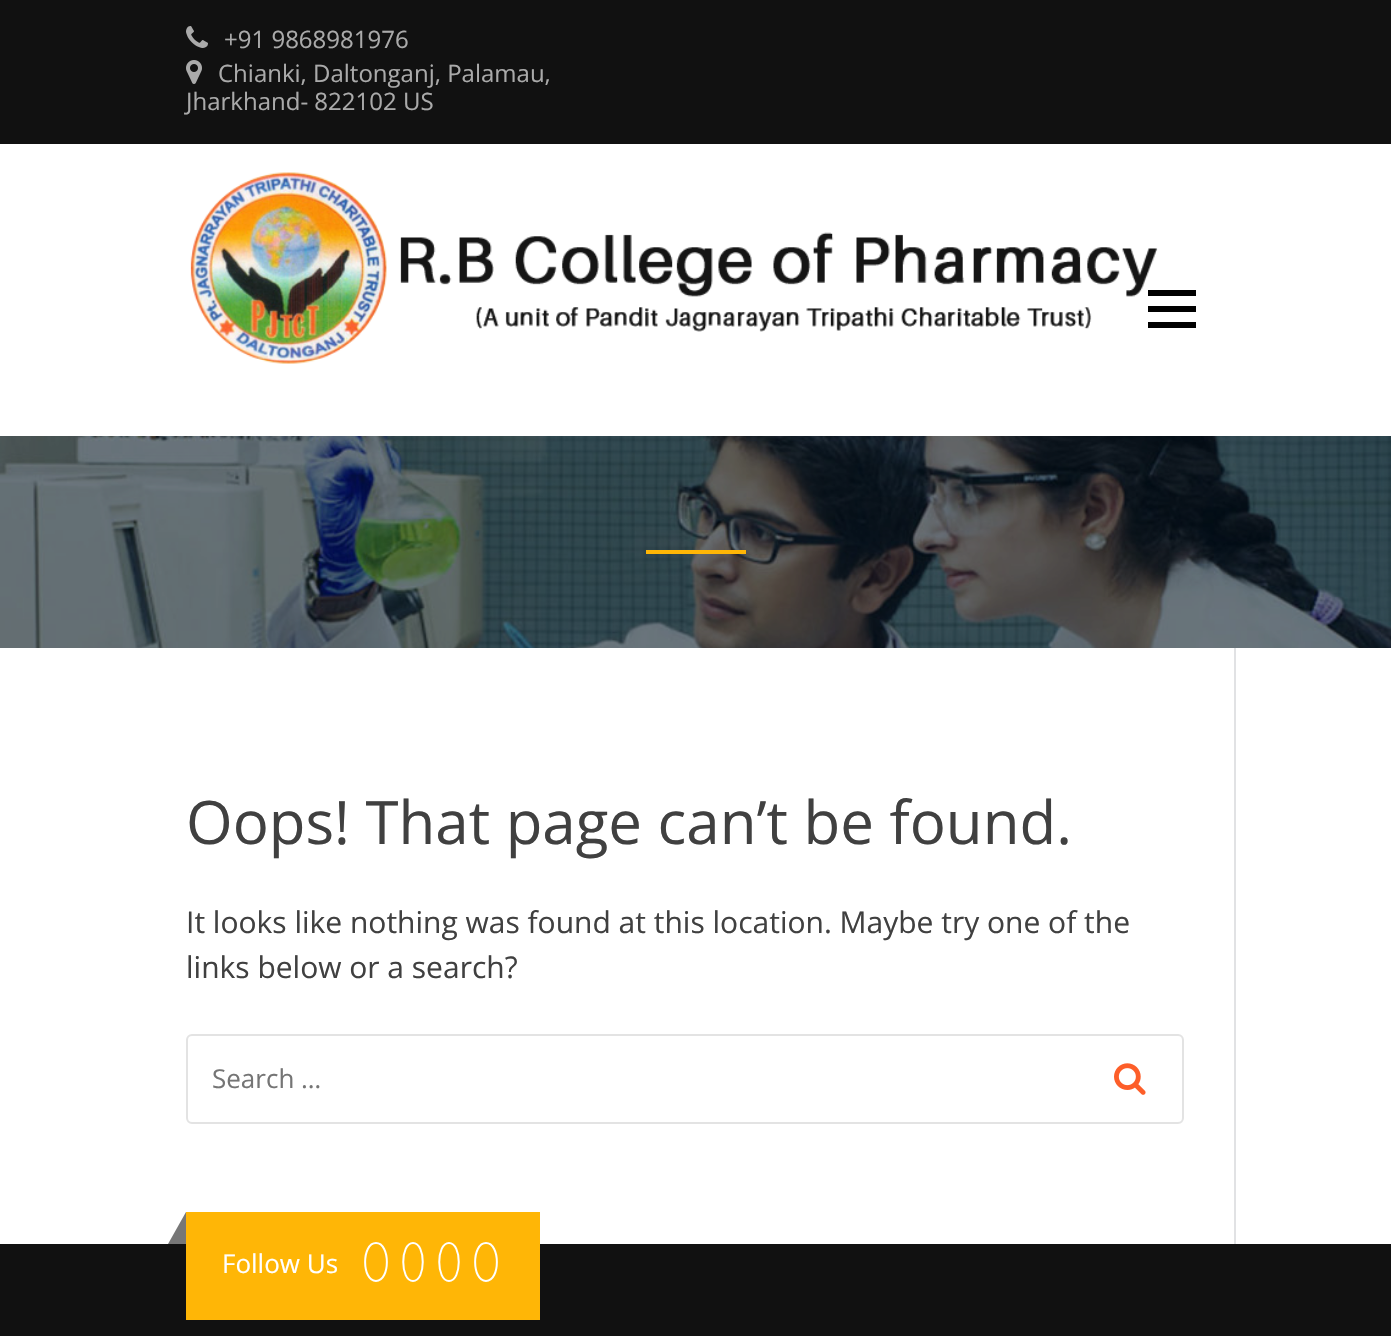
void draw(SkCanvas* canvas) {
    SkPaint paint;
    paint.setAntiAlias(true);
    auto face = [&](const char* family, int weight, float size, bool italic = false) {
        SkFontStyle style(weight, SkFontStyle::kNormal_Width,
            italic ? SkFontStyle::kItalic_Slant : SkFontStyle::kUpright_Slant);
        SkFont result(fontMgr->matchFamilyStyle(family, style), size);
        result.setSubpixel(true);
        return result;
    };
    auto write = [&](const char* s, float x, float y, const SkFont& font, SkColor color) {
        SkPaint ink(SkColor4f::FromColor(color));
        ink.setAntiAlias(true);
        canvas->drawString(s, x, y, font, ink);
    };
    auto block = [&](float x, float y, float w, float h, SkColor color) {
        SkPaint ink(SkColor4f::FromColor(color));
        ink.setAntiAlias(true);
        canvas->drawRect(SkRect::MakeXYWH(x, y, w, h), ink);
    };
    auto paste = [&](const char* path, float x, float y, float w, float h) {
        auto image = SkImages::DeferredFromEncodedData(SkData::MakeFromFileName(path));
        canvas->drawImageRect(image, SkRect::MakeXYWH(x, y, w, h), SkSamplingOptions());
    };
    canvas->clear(SK_ColorWHITE);
    block(0, 0, 1391, 144, SkColorSetRGB(17, 17, 17));
    paste("pic1.png", 186, 26, 22, 22);
    auto kFont1 = face("Open Sans", 400, 24);
    write("+91 9868981976", 224, 48, kFont1, SkColorSetRGB(170, 170, 170));
    paste("pic2.png", 186, 60, 16, 24);
    write("Chianki, Daltonganj, Palamau,", 218, 82, kFont1, SkColorSetRGB(170, 170, 170));
    write("Jharkhand- 822102 US", 186, 110, kFont1, SkColorSetRGB(170, 170, 170));
    paste("pic3.png", 190, 172, 968, 192);
    block(1148, 306, 48, 6, SK_ColorBLACK);
    block(1148, 290, 48, 6, SK_ColorBLACK);
    block(1148, 322, 48, 6, SK_ColorBLACK);
    paste("pic4.png", 0, 436, 1391, 212);
    block(646, 550, 100, 4, SkColorSetRGB(255, 182, 6));
    block(1234, 648, 2, 596, SkColorSetRGB(225, 226, 228));
    auto kFont2 = face("Open Sans", 400, 60);
    write("Oops! That page can’t be found.", 186, 844, kFont2, SkColorSetRGB(64, 64, 64));
    auto kFont3 = face("Open Sans", 400, 30);
    write("It looks like nothing was found at this location. Maybe try one of the", 186, 933, kFont3, SkColorSetRGB(64, 64, 64));
    write("links below or a search?", 186, 978, kFont3, SkColorSetRGB(64, 64, 64));
    paint.setStyle(SkPaint::kStroke_Style);
    paint.setStrokeWidth(2);
    paint.setColor(SkColorSetRGB(227, 227, 227));
    canvas->drawRoundRect(SkRect::MakeXYWH(187, 1035, 996, 88), 5, 5, paint);
    auto kFont4 = face("Open Sans", 400, 26);
    write("Search …", 212, 1088, kFont4, SkColorSetRGB(117, 117, 117));
    paste("pic5.png", 1114, 1063, 32, 32);
    block(0, 1244, 1391, 92, SkColorSetRGB(17, 17, 17));
    block(186, 1212, 354, 108, SkColorSetRGB(255, 182, 6));
    paint.setStyle(SkPaint::kFill_Style);
    paint.setColor(SkColorSetRGB(119, 119, 119));
    canvas->drawPath(SkPathBuilder().moveTo(186, 1212).lineTo(186, 1244).lineTo(168, 1244).close().detach(), paint);
    write("Follow Us", 222, 1273, kFont4, SK_ColorWHITE);
    paint.setStyle(SkPaint::kStroke_Style);
    paint.setColor(SK_ColorWHITE);
    canvas->drawPath(SkPathBuilder().moveTo(376, 1243).cubicTo(390.5f, 1243, 390.5f, 1281, 376, 1281).cubicTo(361.5f, 1281, 361.5f, 1243, 376, 1243).close().moveTo(413, 1243).cubicTo(426, 1243, 426, 1281, 413, 1281).cubicTo(400, 1281, 400, 1243, 413, 1243).close().detach(), paint);
    canvas->drawPath(SkPathBuilder().moveTo(449, 1243).cubicTo(462, 1243, 462, 1281, 449, 1281).cubicTo(436, 1281, 436, 1243, 449, 1243).close().moveTo(486, 1243).cubicTo(500.5f, 1243, 500.5f, 1281, 486, 1281).cubicTo(471.5f, 1281, 471.5f, 1243, 486, 1243).close().detach(), paint);
}
